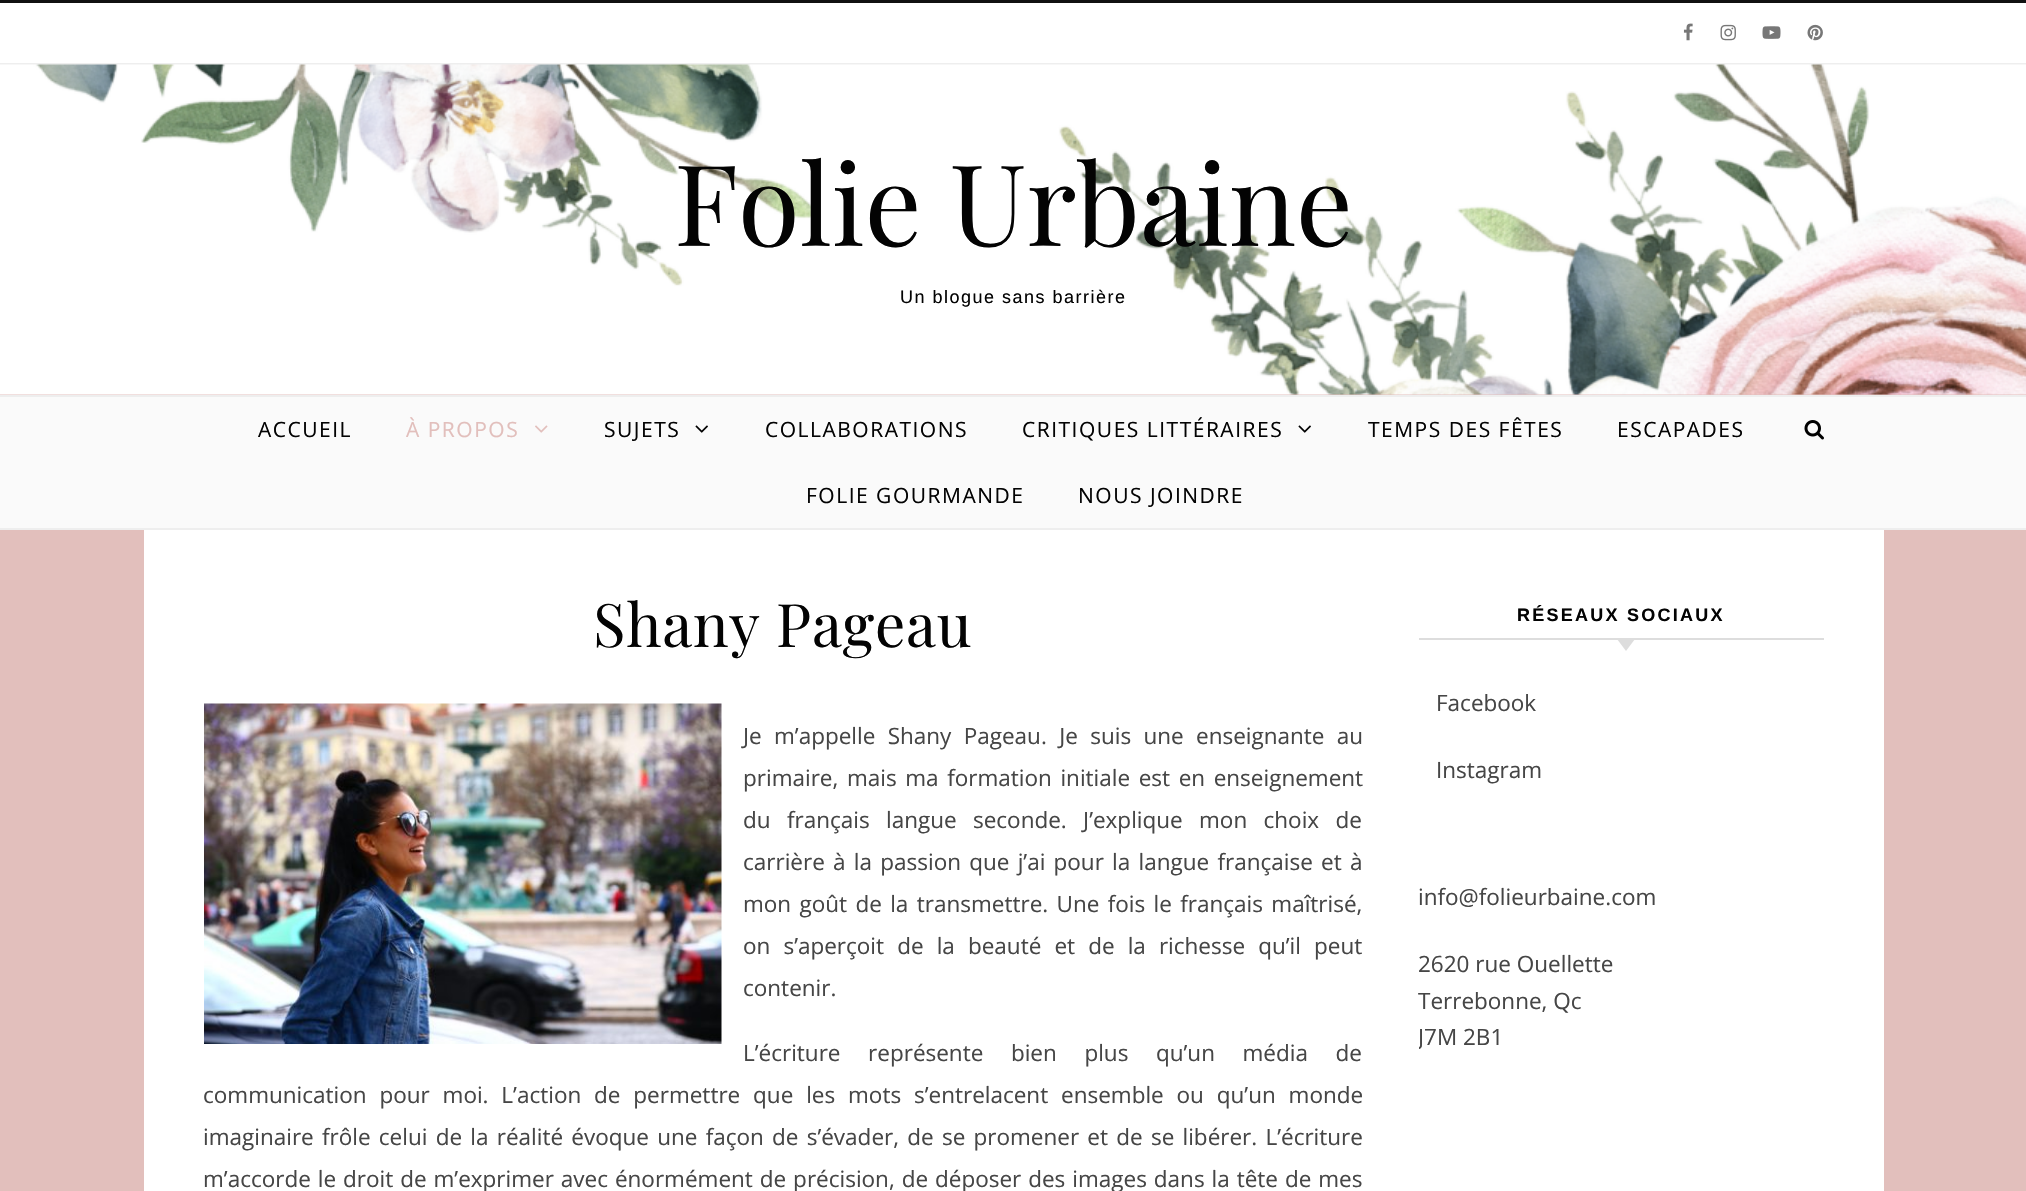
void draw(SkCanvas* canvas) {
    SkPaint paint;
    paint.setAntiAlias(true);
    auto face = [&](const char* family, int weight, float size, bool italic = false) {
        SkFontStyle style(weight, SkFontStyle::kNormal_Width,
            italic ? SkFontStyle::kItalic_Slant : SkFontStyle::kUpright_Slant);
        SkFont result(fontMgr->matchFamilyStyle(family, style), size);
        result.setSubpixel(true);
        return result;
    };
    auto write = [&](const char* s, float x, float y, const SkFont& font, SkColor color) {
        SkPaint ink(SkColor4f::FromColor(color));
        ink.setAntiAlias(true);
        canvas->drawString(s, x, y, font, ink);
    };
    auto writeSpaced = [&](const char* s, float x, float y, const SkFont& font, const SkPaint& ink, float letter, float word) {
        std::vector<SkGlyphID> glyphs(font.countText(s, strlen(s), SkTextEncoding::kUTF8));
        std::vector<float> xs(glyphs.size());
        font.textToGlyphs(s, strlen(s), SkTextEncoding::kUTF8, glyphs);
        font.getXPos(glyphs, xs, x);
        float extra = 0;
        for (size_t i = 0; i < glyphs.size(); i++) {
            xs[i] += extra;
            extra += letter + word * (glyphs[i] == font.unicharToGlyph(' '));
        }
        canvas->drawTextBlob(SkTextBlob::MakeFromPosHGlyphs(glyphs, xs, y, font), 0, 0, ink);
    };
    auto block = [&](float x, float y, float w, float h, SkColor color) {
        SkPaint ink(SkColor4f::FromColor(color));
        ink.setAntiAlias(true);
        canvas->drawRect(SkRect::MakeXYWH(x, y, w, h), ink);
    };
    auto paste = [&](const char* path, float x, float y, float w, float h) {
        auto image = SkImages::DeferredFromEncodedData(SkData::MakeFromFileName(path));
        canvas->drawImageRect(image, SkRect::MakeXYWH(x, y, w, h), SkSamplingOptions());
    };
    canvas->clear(SkColorSetRGB(226, 191, 188));
    block(0, 0, 2026, 3, SkColorSetRGB(17, 17, 17));
    paint.setColor(SkColorSetARGB(26, 0, 0, 0));
    paint.setMaskFilter(SkMaskFilter::MakeBlur(kNormal_SkBlurStyle, 4));
    canvas->drawRect(SkRect::MakeXYWH(0, 5, 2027, 61), paint);
    paint.setMaskFilter(nullptr);
    block(0, 3, 2026, 60, SK_ColorWHITE);
    block(0, 63, 2026, 2, SkColorSetRGB(238, 238, 238));
    paste("pic1.png", 1683, 23, 10, 18);
    paste("pic2.png", 1720, 24, 16, 17);
    paste("pic3.png", 1762, 26, 19, 13);
    paste("pic4.png", 1807, 24, 16, 17);
    paste("pic5.png", 0, 64, 2026, 331);
    auto kFont1 = face("Playfair Display", 400, 112.5f);
    write("Folie Urbaine", 674, 246, kFont1, SkColorSetRGB(3, 3, 3));
    auto kFont2 = face("Liberation Sans", 400, 18);
    paint.setColor(SkColorSetRGB(3, 3, 3));
    writeSpaced("Un blogue sans barrière", 900, 303, kFont2, paint, 1.5f, 0);
    block(0, 397, 2026, 131, SkColorSetRGB(250, 250, 250));
    block(0, 395, 2026, 2, SkColorSetRGB(238, 238, 238));
    block(0, 528, 2026, 2, SkColorSetRGB(238, 238, 238));
    auto kFont3 = face("Open Sans", 400, 21);
    writeSpaced("ACCUEIL", 258, 437, kFont3, paint, 1.5f, 0);
    paint.setColor(SkColorSetRGB(226, 191, 188));
    writeSpaced("À PROPOS", 406, 437, kFont3, paint, 1.5f, 0);
    paste("pic6.png", 535, 425, 13, 8);
    paint.setColor(SkColorSetRGB(3, 3, 3));
    writeSpaced("SUJETS", 604, 437, kFont3, paint, 1.5f, 0);
    paste("pic7.png", 695, 425, 13, 8);
    writeSpaced("COLLABORATIONS", 765, 437, kFont3, paint, 1.5f, 0);
    writeSpaced("CRITIQUES LITTÉRAIRES", 1022, 437, kFont3, paint, 1.5f, 0);
    paste("pic7.png", 1298, 425, 13, 8);
    writeSpaced("TEMPS DES FÊTES", 1368, 437, kFont3, paint, 1.5f, 0);
    writeSpaced("ESCAPADES", 1617, 437, kFont3, paint, 1.5f, 0);
    writeSpaced("FOLIE GOURMANDE", 806, 503, kFont3, paint, 1.5f, 0);
    writeSpaced("NOUS JOINDRE", 1078, 503, kFont3, paint, 1.5f, 0);
    paste("pic8.png", 1804, 420, 20, 20);
    block(144, 530, 1740, 661, SK_ColorWHITE);
    auto kFont4 = face("Playfair Display", 400, 60);
    writeSpaced("Shany Pageau", 593, 647, kFont4, paint, 0.75f, 0);
    paste("pic9.png", 204, 703, 518, 341);
    auto kFont5 = face("Open Sans", 400, 22.5f);
    paint.setColor(SkColorSetRGB(70, 70, 70));
    writeSpaced("Je m’appelle Shany Pageau. Je suis une enseignante au", 743, 744, kFont5, paint, 0, 6.5f);
    writeSpaced("primaire, mais ma formation initiale est en enseignement", 743, 786, kFont5, paint, 0, 2.75f);
    writeSpaced("du français langue seconde. J’explique mon choix de", 743, 828, kFont5, paint, 0, 10.5f);
    writeSpaced("carrière à la passion que j’ai pour la langue française et à", 743, 870, kFont5, paint, 0, 2.4f);
    writeSpaced("mon goût de la transmettre. Une fois le français maîtrisé,", 743, 912, kFont5, paint, 0, 2.5f);
    writeSpaced("on s’aperçoit de la beauté et de la richesse qu’il peut", 743, 954, kFont5, paint, 0, 7.25f);
    write("contenir.", 743, 996, kFont5, SkColorSetRGB(70, 70, 70));
    writeSpaced("L’écriture représente bien plus qu’un média de", 743, 1061, kFont5, paint, 0, 21.75f);
    writeSpaced("communication pour moi. L’action de permettre que les mots s’entrelacent ensemble ou qu’un monde", 203, 1103, kFont5, paint, 0, 7);
    writeSpaced("imaginaire frôle celui de la réalité évoque une façon de s’évader, de se promener et de se libérer. L’écriture", 203, 1145, kFont5, paint, 0, 2.4f);
    writeSpaced("m’accorde le droit de m’exprimer avec énormément de précision, de déposer des images dans la tête de mes", 203, 1187, kFont5, paint, 0, 1.1f);
    block(1419, 638, 405, 2, SkColorSetRGB(221, 221, 221));
    auto kFont6 = face("Liberation Sans", 700, 18);
    paint.setColor(SkColorSetRGB(3, 3, 3));
    writeSpaced("RÉSEAUX SOCIAUX", 1517, 621, kFont6, paint, 2.25f, 0);
    paint.setColor(SkColorSetRGB(221, 221, 221));
    canvas->drawPath(SkPathBuilder().moveTo(1617, 639).lineTo(1635, 639).lineTo(1626, 651).close().detach(), paint);
    write("Facebook", 1436, 711, kFont5, SkColorSetRGB(70, 70, 70));
    write("Instagram", 1436, 778, kFont5, SkColorSetRGB(70, 70, 70));
    write("info@folieurbaine.com", 1418, 905, kFont5, SkColorSetRGB(70, 70, 70));
    write("2620 rue Ouellette", 1418, 972, kFont5, SkColorSetRGB(70, 70, 70));
    write("Terrebonne, Qc", 1418, 1009, kFont5, SkColorSetRGB(70, 70, 70));
    canvas->save();
    canvas->clipRect(SkRect::MakeXYWH(1419, 863, 405, 208));
    write("J7M 2B1", 1418, 1045, kFont5, SkColorSetRGB(70, 70, 70));
    canvas->restore();
}
